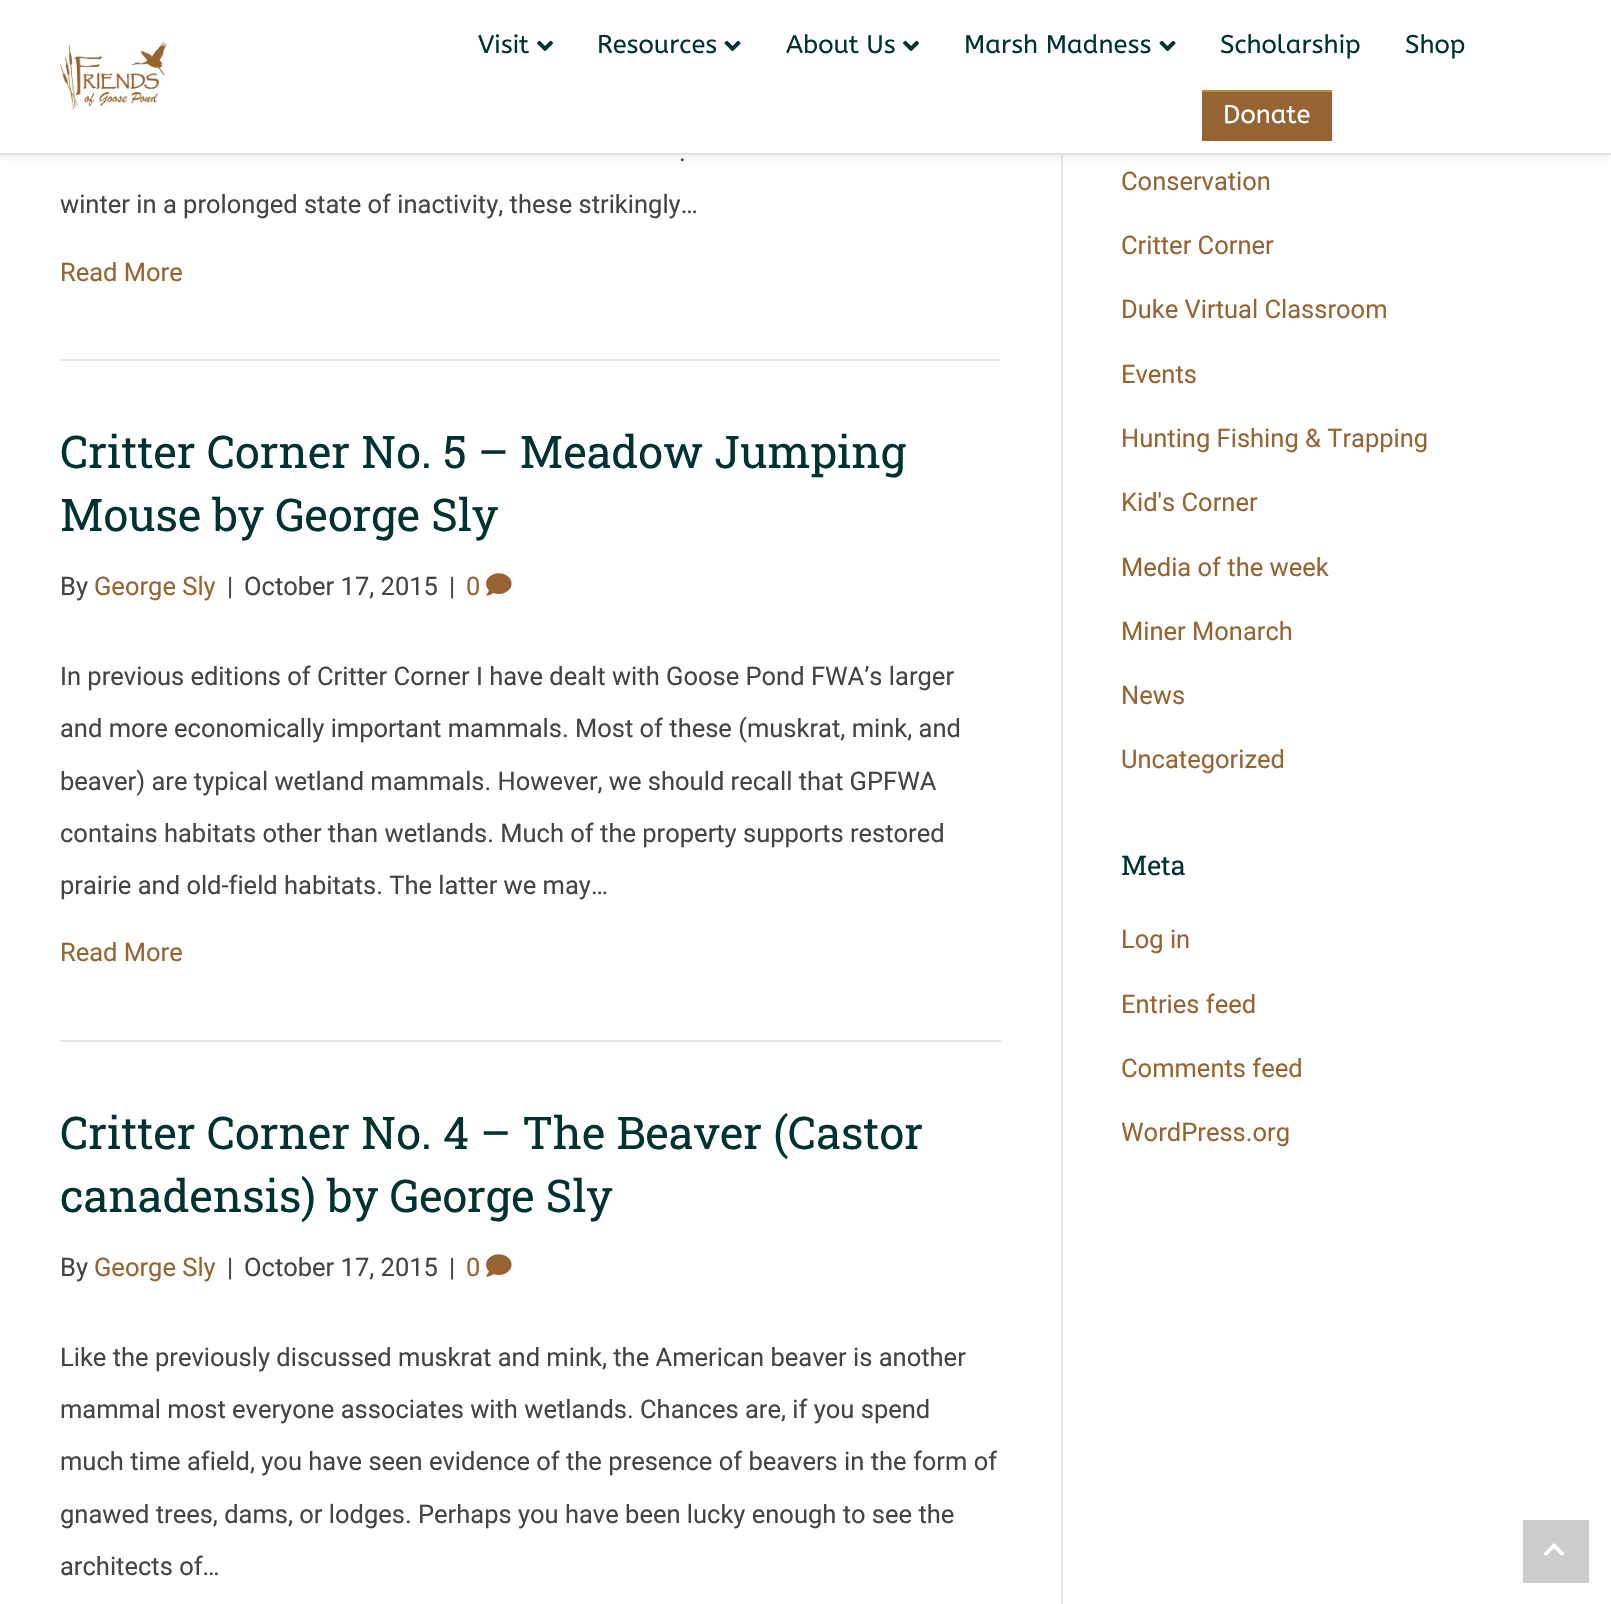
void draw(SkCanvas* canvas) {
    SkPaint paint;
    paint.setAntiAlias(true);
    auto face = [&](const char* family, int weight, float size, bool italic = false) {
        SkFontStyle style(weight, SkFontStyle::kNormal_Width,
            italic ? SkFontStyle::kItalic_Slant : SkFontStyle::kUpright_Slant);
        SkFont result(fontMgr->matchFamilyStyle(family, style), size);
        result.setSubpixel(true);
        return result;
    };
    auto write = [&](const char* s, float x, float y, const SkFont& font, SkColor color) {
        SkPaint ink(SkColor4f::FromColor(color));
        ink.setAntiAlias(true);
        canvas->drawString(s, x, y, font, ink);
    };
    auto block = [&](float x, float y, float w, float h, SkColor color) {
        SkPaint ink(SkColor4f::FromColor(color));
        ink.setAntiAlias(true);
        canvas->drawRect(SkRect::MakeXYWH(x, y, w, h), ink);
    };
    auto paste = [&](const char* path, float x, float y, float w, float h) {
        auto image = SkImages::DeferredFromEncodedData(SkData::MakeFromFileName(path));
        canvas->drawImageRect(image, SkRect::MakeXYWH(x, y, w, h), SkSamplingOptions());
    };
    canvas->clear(SK_ColorWHITE);
    block(1061, 155, 2, 1449, SkColorSetRGB(230, 230, 230));
    paint.setColor(SkColorSetARGB(26, 0, 0, 0));
    paint.setMaskFilter(SkMaskFilter::MakeBlur(kNormal_SkBlurStyle, 5));
    canvas->drawRect(SkRect::MakeXYWH(0, 0, 1611, 155), paint);
    paint.setMaskFilter(nullptr);
    block(0, 0, 1611, 153, SK_ColorWHITE);
    block(1202, 141, 130, 1, SkColorSetRGB(251, 250, 248));
    block(0, 153, 1611, 2, SkColorSetRGB(222, 228, 228));
    paste("pic1.png", 60, 41, 107, 70);
    auto kFont1 = face("ABeeZee", 400, 25.5f);
    write("Visit", 478, 53, kFont1, SkColorSetRGB(0, 50, 50));
    paste("pic2.png", 537, 40, 16, 11);
    write("Resources", 597, 53, kFont1, SkColorSetRGB(0, 50, 50));
    paste("pic3.png", 724, 40, 17, 12);
    write("About Us", 786, 53, kFont1, SkColorSetRGB(0, 50, 50));
    paste("pic2.png", 903, 40, 16, 11);
    write("Marsh Madness", 964, 53, kFont1, SkColorSetRGB(0, 50, 50));
    paste("pic3.png", 1159, 40, 17, 12);
    write("Scholarship", 1220, 53, kFont1, SkColorSetRGB(0, 50, 50));
    write("Shop", 1405, 53, kFont1, SkColorSetRGB(0, 50, 50));
    block(1202, 92, 130, 48, SkColorSetRGB(150, 100, 50));
    block(1202, 140, 130, 1, SkColorSetRGB(149, 100, 49));
    block(1202, 90, 130, 2, SkColorSetRGB(179, 143, 55));
    write("Donate", 1223, 123, kFont1, SK_ColorWHITE);
    block(60, 359, 941, 2, SkColorSetRGB(230, 230, 230));
    auto kFont2 = face("Roboto", 400, 25.5f);
    write(".", 679, 161, kFont2, SkColorSetRGB(68, 68, 68));
    write("winter in a prolonged state of inactivity, these strikingly…", 60, 213, kFont2, SkColorSetRGB(68, 68, 68));
    write("Read More", 60, 281, kFont2, SkColorSetRGB(150, 100, 50));
    block(60, 1040, 941, 2, SkColorSetRGB(230, 230, 230));
    auto kFont3 = face("Roboto Slab", 400, 45);
    write("Critter Corner No. 5 – Meadow Jumping", 60, 468, kFont3, SkColorSetRGB(0, 50, 50));
    write("Mouse by George Sly", 60, 531, kFont3, SkColorSetRGB(0, 50, 50));
    write("By", 60, 595, kFont2, SkColorSetRGB(68, 68, 68));
    write("George Sly", 94, 595, kFont2, SkColorSetRGB(150, 100, 50));
    write("|", 227, 595, kFont2, SkColorSetRGB(68, 68, 68));
    write("October 17, 2015", 244, 595, kFont2, SkColorSetRGB(68, 68, 68));
    write("|", 449, 595, kFont2, SkColorSetRGB(68, 68, 68));
    write("0", 466, 595, kFont2, SkColorSetRGB(150, 100, 50));
    paste("pic4.png", 486, 573, 26, 23);
    write("In previous editions of Critter Corner I have dealt with Goose Pond FWA’s larger", 60, 685, kFont2, SkColorSetRGB(68, 68, 68));
    write("and more economically important mammals. Most of these (muskrat, mink, and", 60, 737, kFont2, SkColorSetRGB(68, 68, 68));
    write("beaver) are typical wetland mammals. However, we should recall that GPFWA", 60, 790, kFont2, SkColorSetRGB(68, 68, 68));
    write("contains habitats other than wetlands. Much of the property supports restored", 60, 842, kFont2, SkColorSetRGB(68, 68, 68));
    write("prairie and old-field habitats. The latter we may…", 60, 894, kFont2, SkColorSetRGB(68, 68, 68));
    write("Read More", 60, 961, kFont2, SkColorSetRGB(150, 100, 50));
    write("Critter Corner No. 4 – The Beaver (Castor", 60, 1149, kFont3, SkColorSetRGB(0, 50, 50));
    write("canadensis) by George Sly", 60, 1212, kFont3, SkColorSetRGB(0, 50, 50));
    write("By", 60, 1276, kFont2, SkColorSetRGB(68, 68, 68));
    write("George Sly", 94, 1276, kFont2, SkColorSetRGB(150, 100, 50));
    write("|", 227, 1276, kFont2, SkColorSetRGB(68, 68, 68));
    write("October 17, 2015", 244, 1276, kFont2, SkColorSetRGB(68, 68, 68));
    write("|", 449, 1276, kFont2, SkColorSetRGB(68, 68, 68));
    write("0", 466, 1276, kFont2, SkColorSetRGB(150, 100, 50));
    paste("pic4.png", 486, 1254, 26, 23);
    write("Like the previously discussed muskrat and mink, the American beaver is another", 60, 1366, kFont2, SkColorSetRGB(68, 68, 68));
    write("mammal most everyone associates with wetlands. Chances are, if you spend", 60, 1418, kFont2, SkColorSetRGB(68, 68, 68));
    write("much time afield, you have seen evidence of the presence of beavers in the form of", 60, 1470, kFont2, SkColorSetRGB(68, 68, 68));
    write("gnawed trees, dams, or lodges. Perhaps you have been lucky enough to see the", 60, 1523, kFont2, SkColorSetRGB(68, 68, 68));
    write("architects of…", 60, 1575, kFont2, SkColorSetRGB(68, 68, 68));
    write("Conservation", 1121, 190, kFont2, SkColorSetRGB(150, 100, 50));
    write("Critter Corner", 1121, 254, kFont2, SkColorSetRGB(150, 100, 50));
    write("Duke Virtual Classroom", 1121, 318, kFont2, SkColorSetRGB(150, 100, 50));
    write("Events", 1121, 383, kFont2, SkColorSetRGB(150, 100, 50));
    write("Hunting Fishing & Trapping", 1121, 447, kFont2, SkColorSetRGB(150, 100, 50));
    write("Kid's Corner", 1121, 511, kFont2, SkColorSetRGB(150, 100, 50));
    write("Media of the week", 1121, 576, kFont2, SkColorSetRGB(150, 100, 50));
    write("Miner Monarch", 1121, 640, kFont2, SkColorSetRGB(150, 100, 50));
    write("News", 1121, 704, kFont2, SkColorSetRGB(150, 100, 50));
    write("Uncategorized", 1121, 768, kFont2, SkColorSetRGB(150, 100, 50));
    auto kFont4 = face("Roboto Slab", 400, 27);
    write("Meta", 1121, 875, kFont4, SkColorSetRGB(0, 50, 50));
    write("Log in", 1121, 948, kFont2, SkColorSetRGB(150, 100, 50));
    write("Entries feed", 1121, 1013, kFont2, SkColorSetRGB(150, 100, 50));
    write("Comments feed", 1121, 1077, kFont2, SkColorSetRGB(150, 100, 50));
    write("WordPress.org", 1121, 1141, kFont2, SkColorSetRGB(150, 100, 50));
    block(1523, 1520, 66, 63, SkColorSetRGB(204, 204, 204));
    paste("pic5.png", 1543, 1543, 22, 13);
}
